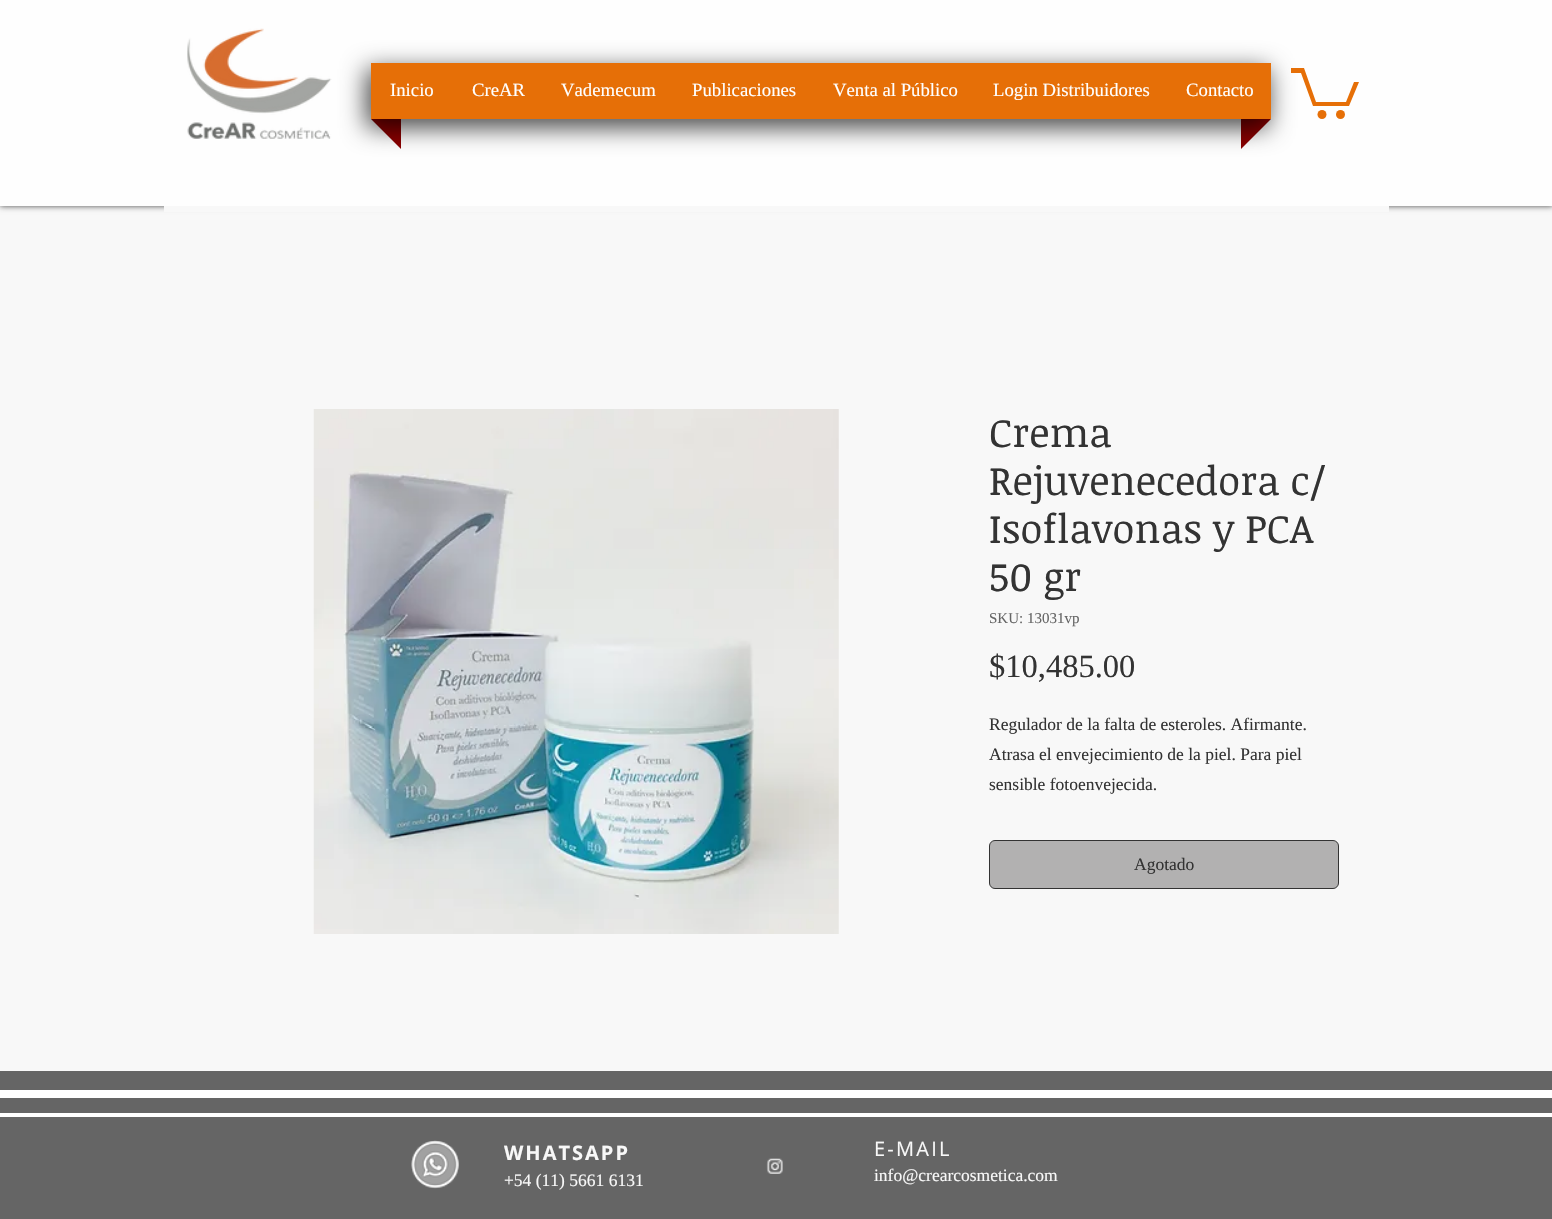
void draw(SkCanvas* canvas) {
    SkPaint paint;
    paint.setAntiAlias(true);
    auto face = [&](const char* family, int weight, float size, bool italic = false) {
        SkFontStyle style(weight, SkFontStyle::kNormal_Width,
            italic ? SkFontStyle::kItalic_Slant : SkFontStyle::kUpright_Slant);
        SkFont result(fontMgr->matchFamilyStyle(family, style), size);
        result.setSubpixel(true);
        return result;
    };
    auto write = [&](const char* s, float x, float y, const SkFont& font, SkColor color) {
        SkPaint ink(SkColor4f::FromColor(color));
        ink.setAntiAlias(true);
        canvas->drawString(s, x, y, font, ink);
    };
    auto writeSpaced = [&](const char* s, float x, float y, const SkFont& font, const SkPaint& ink, float letter, float word) {
        std::vector<SkGlyphID> glyphs(font.countText(s, strlen(s), SkTextEncoding::kUTF8));
        std::vector<float> xs(glyphs.size());
        font.textToGlyphs(s, strlen(s), SkTextEncoding::kUTF8, glyphs);
        font.getXPos(glyphs, xs, x);
        float extra = 0;
        for (size_t i = 0; i < glyphs.size(); i++) {
            xs[i] += extra;
            extra += letter + word * (glyphs[i] == font.unicharToGlyph(' '));
        }
        canvas->drawTextBlob(SkTextBlob::MakeFromPosHGlyphs(glyphs, xs, y, font), 0, 0, ink);
    };
    auto block = [&](float x, float y, float w, float h, SkColor color) {
        SkPaint ink(SkColor4f::FromColor(color));
        ink.setAntiAlias(true);
        canvas->drawRect(SkRect::MakeXYWH(x, y, w, h), ink);
    };
    auto paste = [&](const char* path, float x, float y, float w, float h) {
        auto image = SkImages::DeferredFromEncodedData(SkData::MakeFromFileName(path));
        canvas->drawImageRect(image, SkRect::MakeXYWH(x, y, w, h), SkSamplingOptions());
    };
    canvas->clear(SkColorSetRGB(248, 248, 248));
    paint.setColor(SkColorSetARGB(179, 0, 0, 0));
    paint.setMaskFilter(SkMaskFilter::MakeBlur(kNormal_SkBlurStyle, 3));
    canvas->drawRect(SkRect::MakeXYWH(0, 0, 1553, 206), paint);
    paint.setMaskFilter(nullptr);
    block(0, 0, 1552, 206, SkColorSetRGB(254, 254, 254));
    paste("pic1.png", 187, 28, 145, 111);
    paint.setColor(SkColorSetRGB(139, 0, 0));
    canvas->drawPath(SkPathBuilder().moveTo(371, 119).lineTo(401, 119).lineTo(401, 149).close().detach(), paint);
    canvas->drawPath(SkPathBuilder().moveTo(1241, 119).lineTo(1271, 119).lineTo(1241, 149).close().detach(), paint);
    paint.setColor(SkColorSetARGB(179, 0, 0, 0));
    paint.setMaskFilter(SkMaskFilter::MakeBlur(kNormal_SkBlurStyle, 12));
    canvas->drawRect(SkRect::MakeXYWH(366, 69, 903, 59), paint);
    paint.setMaskFilter(nullptr);
    block(371, 63, 900, 56, SkColorSetRGB(230, 111, 7));
    auto kFont1 = face("Liberation Serif", 400, 18.75f);
    write("Inicio", 390, 96, kFont1, SK_ColorWHITE);
    write("CreAR", 472, 96, kFont1, SK_ColorWHITE);
    write("Vademecum", 561, 96, kFont1, SK_ColorWHITE);
    write("Publicaciones", 692, 96, kFont1, SK_ColorWHITE);
    write("Venta al Público", 833, 96, kFont1, SK_ColorWHITE);
    write("Login Distribuidores", 993, 96, kFont1, SK_ColorWHITE);
    write("Contacto", 1186, 96, kFont1, SK_ColorWHITE);
    paint.setColor(SkColorSetRGB(230, 111, 7));
    canvas->drawPath(SkPathBuilder().moveTo(1359, 82).lineTo(1349, 106).lineTo(1313, 106).lineTo(1301, 73).lineTo(1291, 73).lineTo(1291, 68).lineTo(1304, 68).lineTo(1316, 102).lineTo(1346, 102).lineTo(1354, 82).detach(), paint);
    canvas->drawCircle(1340.5f, 114.5f, 4.5f, paint);
    canvas->drawCircle(1322, 114.5f, 4.5f, paint);
    block(164, 206, 1225, 6, SkColorSetRGB(248, 248, 248));
    paste("pic2.png", 313, 409, 526, 525);
    auto kFont2 = face("Noticia Text", 400, 40);
    write("Crema", 989, 447, kFont2, SkColorSetRGB(51, 51, 51));
    write("Rejuvenecedora c/", 989, 495, kFont2, SkColorSetRGB(51, 51, 51));
    write("Isoflavonas y PCA", 989, 543, kFont2, SkColorSetRGB(51, 51, 51));
    write("50 gr", 989, 591, kFont2, SkColorSetRGB(51, 51, 51));
    auto kFont3 = face("Liberation Serif", 400, 15);
    write("SKU: 13031vp", 989, 623, kFont3, SkColorSetRGB(101, 101, 101));
    auto kFont4 = face("Liberation Serif", 400, 32.5f);
    write("$10,485.00", 989, 677, kFont4, SkColorSetRGB(51, 51, 51));
    auto kFont5 = face("Liberation Serif", 400, 17.5f);
    write("Regulador de la falta de esteroles. Afirmante.", 989, 730, kFont5, SkColorSetRGB(51, 51, 51));
    write("Atrasa el envejecimiento de la piel. Para piel", 989, 760, kFont5, SkColorSetRGB(51, 51, 51));
    write("sensible fotoenvejecida.", 989, 790, kFont5, SkColorSetRGB(51, 51, 51));
    paint.setColor(SkColorSetRGB(178, 177, 177));
    canvas->drawRoundRect(SkRect::MakeXYWH(989.5f, 840.5f, 349, 48), 5.5f, 5.5f, paint);
    paint.setStyle(SkPaint::kStroke_Style);
    paint.setStrokeWidth(1);
    paint.setColor(SkColorSetRGB(51, 51, 51));
    canvas->drawRoundRect(SkRect::MakeXYWH(989.5f, 840.5f, 349, 48), 5.5f, 5.5f, paint);
    write("Agotado", 1134, 870, kFont5, SkColorSetRGB(51, 51, 51));
    block(0, 1071, 1552, 148, SkColorSetRGB(101, 101, 101));
    block(0, 1090, 1552, 8, SK_ColorWHITE);
    block(0, 1113, 1552, 4, SK_ColorWHITE);
    paste("pic3.png", 411, 1140, 48, 49);
    auto kFont6 = face("Open Sans", 700, 20);
    paint.setStyle(SkPaint::kFill_Style);
    paint.setColor(SkColorSetRGB(248, 248, 248));
    writeSpaced("WHATSAPP", 504, 1160, kFont6, paint, 2, 0);
    write("+54 (11) 5661 6131", 504, 1186, kFont5, SkColorSetRGB(248, 248, 248));
    paste("pic4.png", 766, 1158, 17, 16);
    auto kFont7 = face("Open Sans", 400, 20);
    writeSpaced("E-MAIL", 874, 1156, kFont7, paint, 2.25f, 0);
    write("info@crearcosmetica.com", 874, 1181, kFont5, SkColorSetRGB(248, 248, 248));
}
